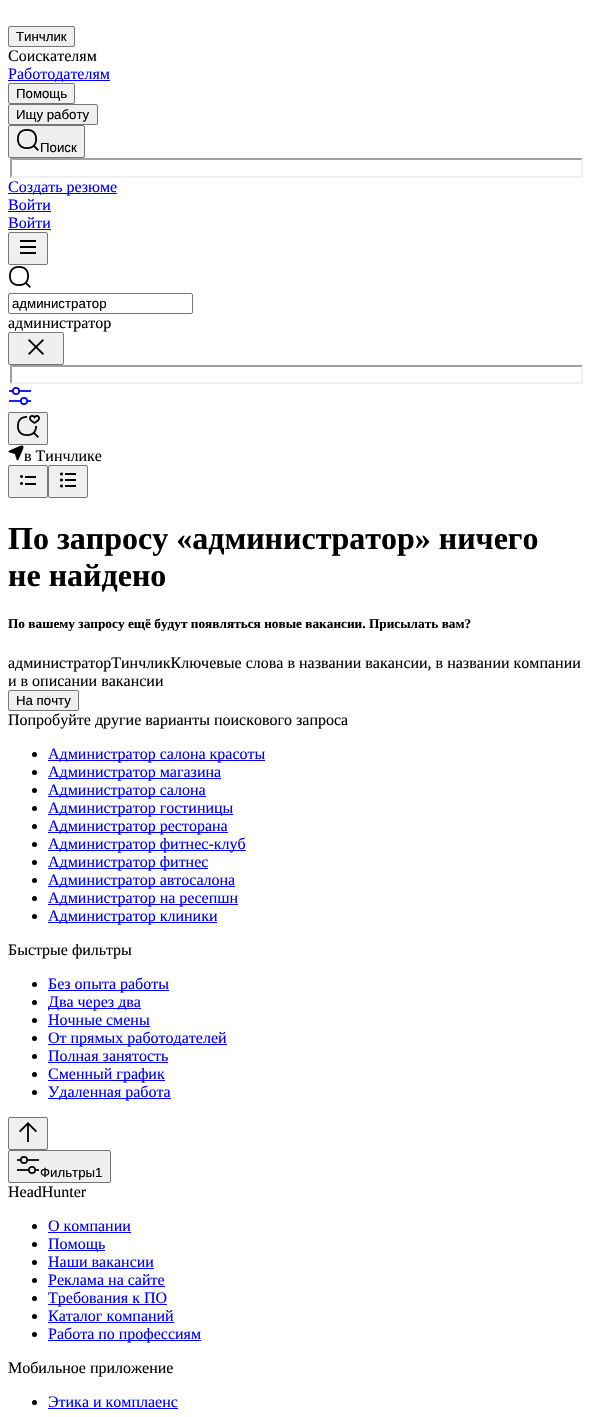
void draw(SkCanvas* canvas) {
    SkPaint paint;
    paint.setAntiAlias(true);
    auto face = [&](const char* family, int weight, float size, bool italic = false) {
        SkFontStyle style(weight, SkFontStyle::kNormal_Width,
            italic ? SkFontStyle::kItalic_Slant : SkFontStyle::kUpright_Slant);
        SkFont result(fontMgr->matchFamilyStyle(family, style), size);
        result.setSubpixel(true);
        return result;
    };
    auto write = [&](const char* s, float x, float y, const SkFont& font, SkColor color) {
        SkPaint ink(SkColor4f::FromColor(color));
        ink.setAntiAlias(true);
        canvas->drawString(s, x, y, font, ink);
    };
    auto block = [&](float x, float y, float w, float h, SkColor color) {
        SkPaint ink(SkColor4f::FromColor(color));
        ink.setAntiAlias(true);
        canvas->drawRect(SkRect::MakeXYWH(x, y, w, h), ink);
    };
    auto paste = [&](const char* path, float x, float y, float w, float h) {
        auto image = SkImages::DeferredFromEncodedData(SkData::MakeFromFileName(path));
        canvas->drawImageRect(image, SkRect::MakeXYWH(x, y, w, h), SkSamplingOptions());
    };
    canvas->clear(SK_ColorWHITE);
    paint.setColor(SkColorSetRGB(239, 239, 239));
    canvas->drawRoundRect(SkRect::MakeXYWH(8.5f, 26.5f, 66, 20), 1.5f, 1.5f, paint);
    paint.setStyle(SkPaint::kStroke_Style);
    paint.setStrokeWidth(1);
    paint.setColor(SkColorSetRGB(118, 118, 118));
    canvas->drawRoundRect(SkRect::MakeXYWH(8.5f, 26.5f, 66, 20), 1.5f, 1.5f, paint);
    auto kFont1 = face("Liberation Sans", 400, 13.25f);
    write("Тинчлик", 16, 41, kFont1, SK_ColorBLACK);
    auto kFont2 = face("Liberation Serif", 400, 16);
    write("Соискателям", 8, 61, kFont2, SK_ColorBLACK);
    block(8, 80, 102, 1, SkColorSetRGB(0, 0, 238));
    write("Работодателям", 8, 79, kFont2, SkColorSetRGB(0, 0, 238));
    paint.setStyle(SkPaint::kFill_Style);
    paint.setColor(SkColorSetRGB(239, 239, 239));
    canvas->drawRoundRect(SkRect::MakeXYWH(8.5f, 83.5f, 66, 20), 1.5f, 1.5f, paint);
    paint.setStyle(SkPaint::kStroke_Style);
    paint.setColor(SkColorSetRGB(118, 118, 118));
    canvas->drawRoundRect(SkRect::MakeXYWH(8.5f, 83.5f, 66, 20), 1.5f, 1.5f, paint);
    write("Помощь", 16, 98, kFont1, SK_ColorBLACK);
    paint.setStyle(SkPaint::kFill_Style);
    paint.setColor(SkColorSetRGB(239, 239, 239));
    canvas->drawRoundRect(SkRect::MakeXYWH(8.5f, 104.5f, 89, 20), 1.5f, 1.5f, paint);
    paint.setStyle(SkPaint::kStroke_Style);
    paint.setColor(SkColorSetRGB(118, 118, 118));
    canvas->drawRoundRect(SkRect::MakeXYWH(8.5f, 104.5f, 89, 20), 1.5f, 1.5f, paint);
    write("Ищу работу", 16, 119, kFont1, SK_ColorBLACK);
    paint.setStyle(SkPaint::kFill_Style);
    paint.setColor(SkColorSetRGB(239, 239, 239));
    canvas->drawRoundRect(SkRect::MakeXYWH(8.5f, 125.5f, 76, 32), 1.5f, 1.5f, paint);
    paint.setStyle(SkPaint::kStroke_Style);
    paint.setColor(SkColorSetRGB(118, 118, 118));
    canvas->drawRoundRect(SkRect::MakeXYWH(8.5f, 125.5f, 76, 32), 1.5f, 1.5f, paint);
    paste("pic1.png", 17, 129, 22, 22);
    write("Поиск", 40, 152, kFont1, SK_ColorBLACK);
    paint.setStyle(SkPaint::kFill_Style);
    paint.setColor(SkColorSetRGB(159, 159, 159));
    canvas->drawPath(SkPathBuilder().moveTo(10, 158).lineTo(583, 158).lineTo(581, 160).lineTo(12, 160).close().detach(), paint);
    paint.setColor(SkColorSetRGB(239, 239, 239));
    canvas->drawPath(SkPathBuilder().moveTo(583, 158).lineTo(583, 178).lineTo(581, 176).lineTo(581, 160).close().detach(), paint);
    canvas->drawPath(SkPathBuilder().moveTo(583, 178).lineTo(10, 178).lineTo(12, 176).lineTo(581, 176).close().detach(), paint);
    paint.setColor(SkColorSetRGB(159, 159, 159));
    canvas->drawPath(SkPathBuilder().moveTo(10, 178).lineTo(10, 158).lineTo(12, 160).lineTo(12, 176).close().detach(), paint);
    block(8, 193, 109, 1, SkColorSetRGB(0, 0, 238));
    write("Создать резюме", 8, 192, kFont2, SkColorSetRGB(0, 0, 238));
    write("Войти", 8, 210, kFont2, SkColorSetRGB(0, 0, 238));
    block(8, 211, 43, 1, SkColorSetRGB(0, 0, 238));
    write("Войти", 8, 228, kFont2, SkColorSetRGB(0, 0, 238));
    block(8, 229, 43, 1, SkColorSetRGB(0, 0, 238));
    paint.setColor(SkColorSetRGB(239, 239, 239));
    canvas->drawRoundRect(SkRect::MakeXYWH(8.5f, 232.5f, 39, 32), 1.5f, 1.5f, paint);
    paint.setStyle(SkPaint::kStroke_Style);
    paint.setColor(SkColorSetRGB(118, 118, 118));
    canvas->drawRoundRect(SkRect::MakeXYWH(8.5f, 232.5f, 39, 32), 1.5f, 1.5f, paint);
    block(20, 240, 16, 2, SK_ColorBLACK);
    block(20, 246, 16, 2, SK_ColorBLACK);
    block(20, 252, 16, 2, SK_ColorBLACK);
    paste("pic2.png", 9, 266, 22, 22);
    canvas->drawRoundRect(SkRect::MakeXYWH(8.5f, 293.5f, 184, 20), 1.5f, 1.5f, paint);
    write("администратор", 12, 308, kFont1, SK_ColorBLACK);
    write("администратор", 8, 328, kFont2, SK_ColorBLACK);
    paint.setStyle(SkPaint::kFill_Style);
    paint.setColor(SkColorSetRGB(239, 239, 239));
    canvas->drawRoundRect(SkRect::MakeXYWH(8.5f, 332.5f, 55, 32), 1.5f, 1.5f, paint);
    paint.setStyle(SkPaint::kStroke_Style);
    paint.setColor(SkColorSetRGB(118, 118, 118));
    canvas->drawRoundRect(SkRect::MakeXYWH(8.5f, 332.5f, 55, 32), 1.5f, 1.5f, paint);
    paste("pic3.png", 28, 339, 16, 16);
    paint.setStyle(SkPaint::kFill_Style);
    paint.setColor(SkColorSetRGB(159, 159, 159));
    canvas->drawPath(SkPathBuilder().moveTo(10, 365).lineTo(583, 365).lineTo(581, 367).lineTo(12, 367).close().detach(), paint);
    paint.setColor(SkColorSetRGB(239, 239, 239));
    canvas->drawPath(SkPathBuilder().moveTo(583, 365).lineTo(583, 384).lineTo(581, 382).lineTo(581, 367).close().detach(), paint);
    canvas->drawPath(SkPathBuilder().moveTo(583, 384).lineTo(10, 384).lineTo(12, 382).lineTo(581, 382).close().detach(), paint);
    paint.setColor(SkColorSetRGB(159, 159, 159));
    canvas->drawPath(SkPathBuilder().moveTo(10, 384).lineTo(10, 365).lineTo(12, 367).lineTo(12, 382).close().detach(), paint);
    paste("pic4.png", 9, 387, 22, 18);
    paint.setColor(SkColorSetRGB(239, 239, 239));
    canvas->drawRoundRect(SkRect::MakeXYWH(8.5f, 412.5f, 39, 32), 1.5f, 1.5f, paint);
    paint.setStyle(SkPaint::kStroke_Style);
    paint.setColor(SkColorSetRGB(118, 118, 118));
    canvas->drawRoundRect(SkRect::MakeXYWH(8.5f, 412.5f, 39, 32), 1.5f, 1.5f, paint);
    paste("pic5.png", 17, 415, 23, 23);
    paste("pic6.png", 8, 445, 16, 16);
    write("в Тинчлике", 24, 461, kFont2, SK_ColorBLACK);
    paint.setStyle(SkPaint::kFill_Style);
    paint.setColor(SkColorSetRGB(239, 239, 239));
    canvas->drawRoundRect(SkRect::MakeXYWH(8.5f, 465.5f, 39, 32), 1.5f, 1.5f, paint);
    paint.setStyle(SkPaint::kStroke_Style);
    paint.setColor(SkColorSetRGB(118, 118, 118));
    canvas->drawRoundRect(SkRect::MakeXYWH(8.5f, 465.5f, 39, 32), 1.5f, 1.5f, paint);
    paste("pic7.png", 20, 475, 16, 10);
    paint.setStyle(SkPaint::kFill_Style);
    paint.setColor(SkColorSetRGB(239, 239, 239));
    canvas->drawRoundRect(SkRect::MakeXYWH(48.5f, 465.5f, 39, 32), 1.5f, 1.5f, paint);
    paint.setStyle(SkPaint::kStroke_Style);
    paint.setColor(SkColorSetRGB(118, 118, 118));
    canvas->drawRoundRect(SkRect::MakeXYWH(48.5f, 465.5f, 39, 32), 1.5f, 1.5f, paint);
    paste("pic8.png", 60, 472, 16, 16);
    auto kFont3 = face("Liberation Serif", 700, 32);
    write("По запросу «администратор» ничего", 8, 549, kFont3, SK_ColorBLACK);
    write("не найдено", 8, 586, kFont3, SK_ColorBLACK);
    auto kFont4 = face("Liberation Serif", 700, 13.3f);
    write("По вашему запросу ещё будут появляться новые вакансии. Присылать вам?", 8, 628, kFont4, SK_ColorBLACK);
    write("администраторТинчликКлючевые слова в названии вакансии, в названии компании", 8, 668, kFont2, SK_ColorBLACK);
    write("и в описании вакансии", 8, 686, kFont2, SK_ColorBLACK);
    paint.setStyle(SkPaint::kFill_Style);
    paint.setColor(SkColorSetRGB(239, 239, 239));
    canvas->drawRoundRect(SkRect::MakeXYWH(8.5f, 690.5f, 70, 20), 1.5f, 1.5f, paint);
    paint.setStyle(SkPaint::kStroke_Style);
    paint.setColor(SkColorSetRGB(118, 118, 118));
    canvas->drawRoundRect(SkRect::MakeXYWH(8.5f, 690.5f, 70, 20), 1.5f, 1.5f, paint);
    write("На почту", 16, 705, kFont1, SK_ColorBLACK);
    write("Попробуйте другие варианты поискового запроса", 8, 725, kFont2, SK_ColorBLACK);
    paint.setStyle(SkPaint::kFill_Style);
    paint.setColor(SK_ColorBLACK);
    canvas->drawCircle(34.5f, 754.5f, 2.5f, paint);
    block(48, 760, 217, 1, SkColorSetRGB(0, 0, 238));
    write("Администратор салона красоты", 48, 759, kFont2, SkColorSetRGB(0, 0, 238));
    canvas->drawCircle(34.5f, 772.5f, 2.5f, paint);
    block(48, 778, 173, 1, SkColorSetRGB(0, 0, 238));
    write("Администратор магазина", 48, 777, kFont2, SkColorSetRGB(0, 0, 238));
    canvas->drawCircle(34.5f, 790.5f, 2.5f, paint);
    block(48, 796, 158, 1, SkColorSetRGB(0, 0, 238));
    write("Администратор салона", 48, 795, kFont2, SkColorSetRGB(0, 0, 238));
    canvas->drawCircle(34.5f, 808.5f, 2.5f, paint);
    block(48, 814, 185, 1, SkColorSetRGB(0, 0, 238));
    write("Администратор гостиницы", 48, 813, kFont2, SkColorSetRGB(0, 0, 238));
    canvas->drawCircle(34.5f, 826.5f, 2.5f, paint);
    block(48, 832, 180, 1, SkColorSetRGB(0, 0, 238));
    write("Администратор ресторана", 48, 831, kFont2, SkColorSetRGB(0, 0, 238));
    canvas->drawCircle(34.5f, 844.5f, 2.5f, paint);
    block(48, 850, 198, 1, SkColorSetRGB(0, 0, 238));
    write("Администратор фитнес-клуб", 48, 849, kFont2, SkColorSetRGB(0, 0, 238));
    canvas->drawCircle(34.5f, 862.5f, 2.5f, paint);
    block(48, 868, 160, 1, SkColorSetRGB(0, 0, 238));
    write("Администратор фитнес", 48, 867, kFont2, SkColorSetRGB(0, 0, 238));
    canvas->drawCircle(34.5f, 880.5f, 2.5f, paint);
    block(48, 886, 187, 1, SkColorSetRGB(0, 0, 238));
    write("Администратор автосалона", 48, 885, kFont2, SkColorSetRGB(0, 0, 238));
    canvas->drawCircle(34.5f, 898.5f, 2.5f, paint);
    block(48, 904, 190, 1, SkColorSetRGB(0, 0, 238));
    write("Администратор на ресепшн", 48, 903, kFont2, SkColorSetRGB(0, 0, 238));
    canvas->drawCircle(34.5f, 916.5f, 2.5f, paint);
    block(48, 922, 169, 1, SkColorSetRGB(0, 0, 238));
    write("Администратор клиники", 48, 921, kFont2, SkColorSetRGB(0, 0, 238));
    write("Быстрые фильтры", 8, 955, kFont2, SK_ColorBLACK);
    canvas->drawCircle(34.5f, 984.5f, 2.5f, paint);
    block(48, 990, 121, 1, SkColorSetRGB(0, 0, 238));
    write("Без опыта работы", 48, 989, kFont2, SkColorSetRGB(0, 0, 238));
    canvas->drawCircle(34.5f, 1002.5f, 2.5f, paint);
    block(48, 1008, 93, 1, SkColorSetRGB(0, 0, 238));
    write("Два через два", 48, 1007, kFont2, SkColorSetRGB(0, 0, 238));
    canvas->drawCircle(34.5f, 1020.5f, 2.5f, paint);
    write("Ночные смены", 48, 1025, kFont2, SkColorSetRGB(0, 0, 238));
    block(48, 1026, 102, 1, SkColorSetRGB(0, 0, 238));
    canvas->drawCircle(34.5f, 1038.5f, 2.5f, paint);
    block(48, 1044, 179, 1, SkColorSetRGB(0, 0, 238));
    write("От прямых работодателей", 48, 1043, kFont2, SkColorSetRGB(0, 0, 238));
    canvas->drawCircle(34.5f, 1056.5f, 2.5f, paint);
    write("Полная занятость", 48, 1061, kFont2, SkColorSetRGB(0, 0, 238));
    block(48, 1062, 120, 1, SkColorSetRGB(0, 0, 238));
    canvas->drawCircle(34.5f, 1074.5f, 2.5f, paint);
    block(48, 1080, 117, 1, SkColorSetRGB(0, 0, 238));
    write("Сменный график", 48, 1079, kFont2, SkColorSetRGB(0, 0, 238));
    canvas->drawCircle(34.5f, 1092.5f, 2.5f, paint);
    block(48, 1098, 123, 1, SkColorSetRGB(0, 0, 238));
    write("Удаленная работа", 48, 1097, kFont2, SkColorSetRGB(0, 0, 238));
    paint.setColor(SkColorSetRGB(239, 239, 239));
    canvas->drawRoundRect(SkRect::MakeXYWH(8.5f, 1117.5f, 39, 32), 1.5f, 1.5f, paint);
    paint.setStyle(SkPaint::kStroke_Style);
    paint.setColor(SkColorSetRGB(118, 118, 118));
    canvas->drawRoundRect(SkRect::MakeXYWH(8.5f, 1117.5f, 39, 32), 1.5f, 1.5f, paint);
    paste("pic9.png", 19, 1122, 18, 20);
    paint.setStyle(SkPaint::kFill_Style);
    paint.setColor(SkColorSetRGB(239, 239, 239));
    canvas->drawRoundRect(SkRect::MakeXYWH(8.5f, 1150.5f, 102, 32), 1.5f, 1.5f, paint);
    paint.setStyle(SkPaint::kStroke_Style);
    paint.setColor(SkColorSetRGB(118, 118, 118));
    canvas->drawRoundRect(SkRect::MakeXYWH(8.5f, 1150.5f, 102, 32), 1.5f, 1.5f, paint);
    paste("pic10.png", 17, 1156, 22, 18);
    write("Фильтры1", 40, 1177, kFont1, SK_ColorBLACK);
    write("HeadHunter", 8, 1197, kFont2, SK_ColorBLACK);
    paint.setStyle(SkPaint::kFill_Style);
    paint.setColor(SK_ColorBLACK);
    canvas->drawCircle(34.5f, 1226.5f, 2.5f, paint);
    write("О компании", 48, 1231, kFont2, SkColorSetRGB(0, 0, 238));
    block(48, 1232, 83, 1, SkColorSetRGB(0, 0, 238));
    canvas->drawCircle(34.5f, 1244.5f, 2.5f, paint);
    block(48, 1250, 57, 1, SkColorSetRGB(0, 0, 238));
    write("Помощь", 48, 1249, kFont2, SkColorSetRGB(0, 0, 238));
    canvas->drawCircle(34.5f, 1262.5f, 2.5f, paint);
    write("Наши вакансии", 48, 1267, kFont2, SkColorSetRGB(0, 0, 238));
    block(48, 1268, 106, 1, SkColorSetRGB(0, 0, 238));
    canvas->drawCircle(34.5f, 1280.5f, 2.5f, paint);
    write("Реклама на сайте", 48, 1285, kFont2, SkColorSetRGB(0, 0, 238));
    block(48, 1286, 117, 1, SkColorSetRGB(0, 0, 238));
    canvas->drawCircle(34.5f, 1298.5f, 2.5f, paint);
    block(48, 1304, 119, 1, SkColorSetRGB(0, 0, 238));
    write("Требования к ПО", 48, 1303, kFont2, SkColorSetRGB(0, 0, 238));
    canvas->drawCircle(34.5f, 1316.5f, 2.5f, paint);
    write("Каталог компаний", 48, 1321, kFont2, SkColorSetRGB(0, 0, 238));
    block(48, 1322, 126, 1, SkColorSetRGB(0, 0, 238));
    canvas->drawCircle(34.5f, 1334.5f, 2.5f, paint);
    block(48, 1340, 153, 1, SkColorSetRGB(0, 0, 238));
    write("Работа по профессиям", 48, 1339, kFont2, SkColorSetRGB(0, 0, 238));
    write("Мобильное приложение", 8, 1373, kFont2, SK_ColorBLACK);
    canvas->drawCircle(34.5f, 1402.5f, 2.5f, paint);
    write("Этика и комплаенс", 48, 1407, kFont2, SkColorSetRGB(0, 0, 238));
    block(48, 1408, 130, 1, SkColorSetRGB(0, 0, 238));
}
